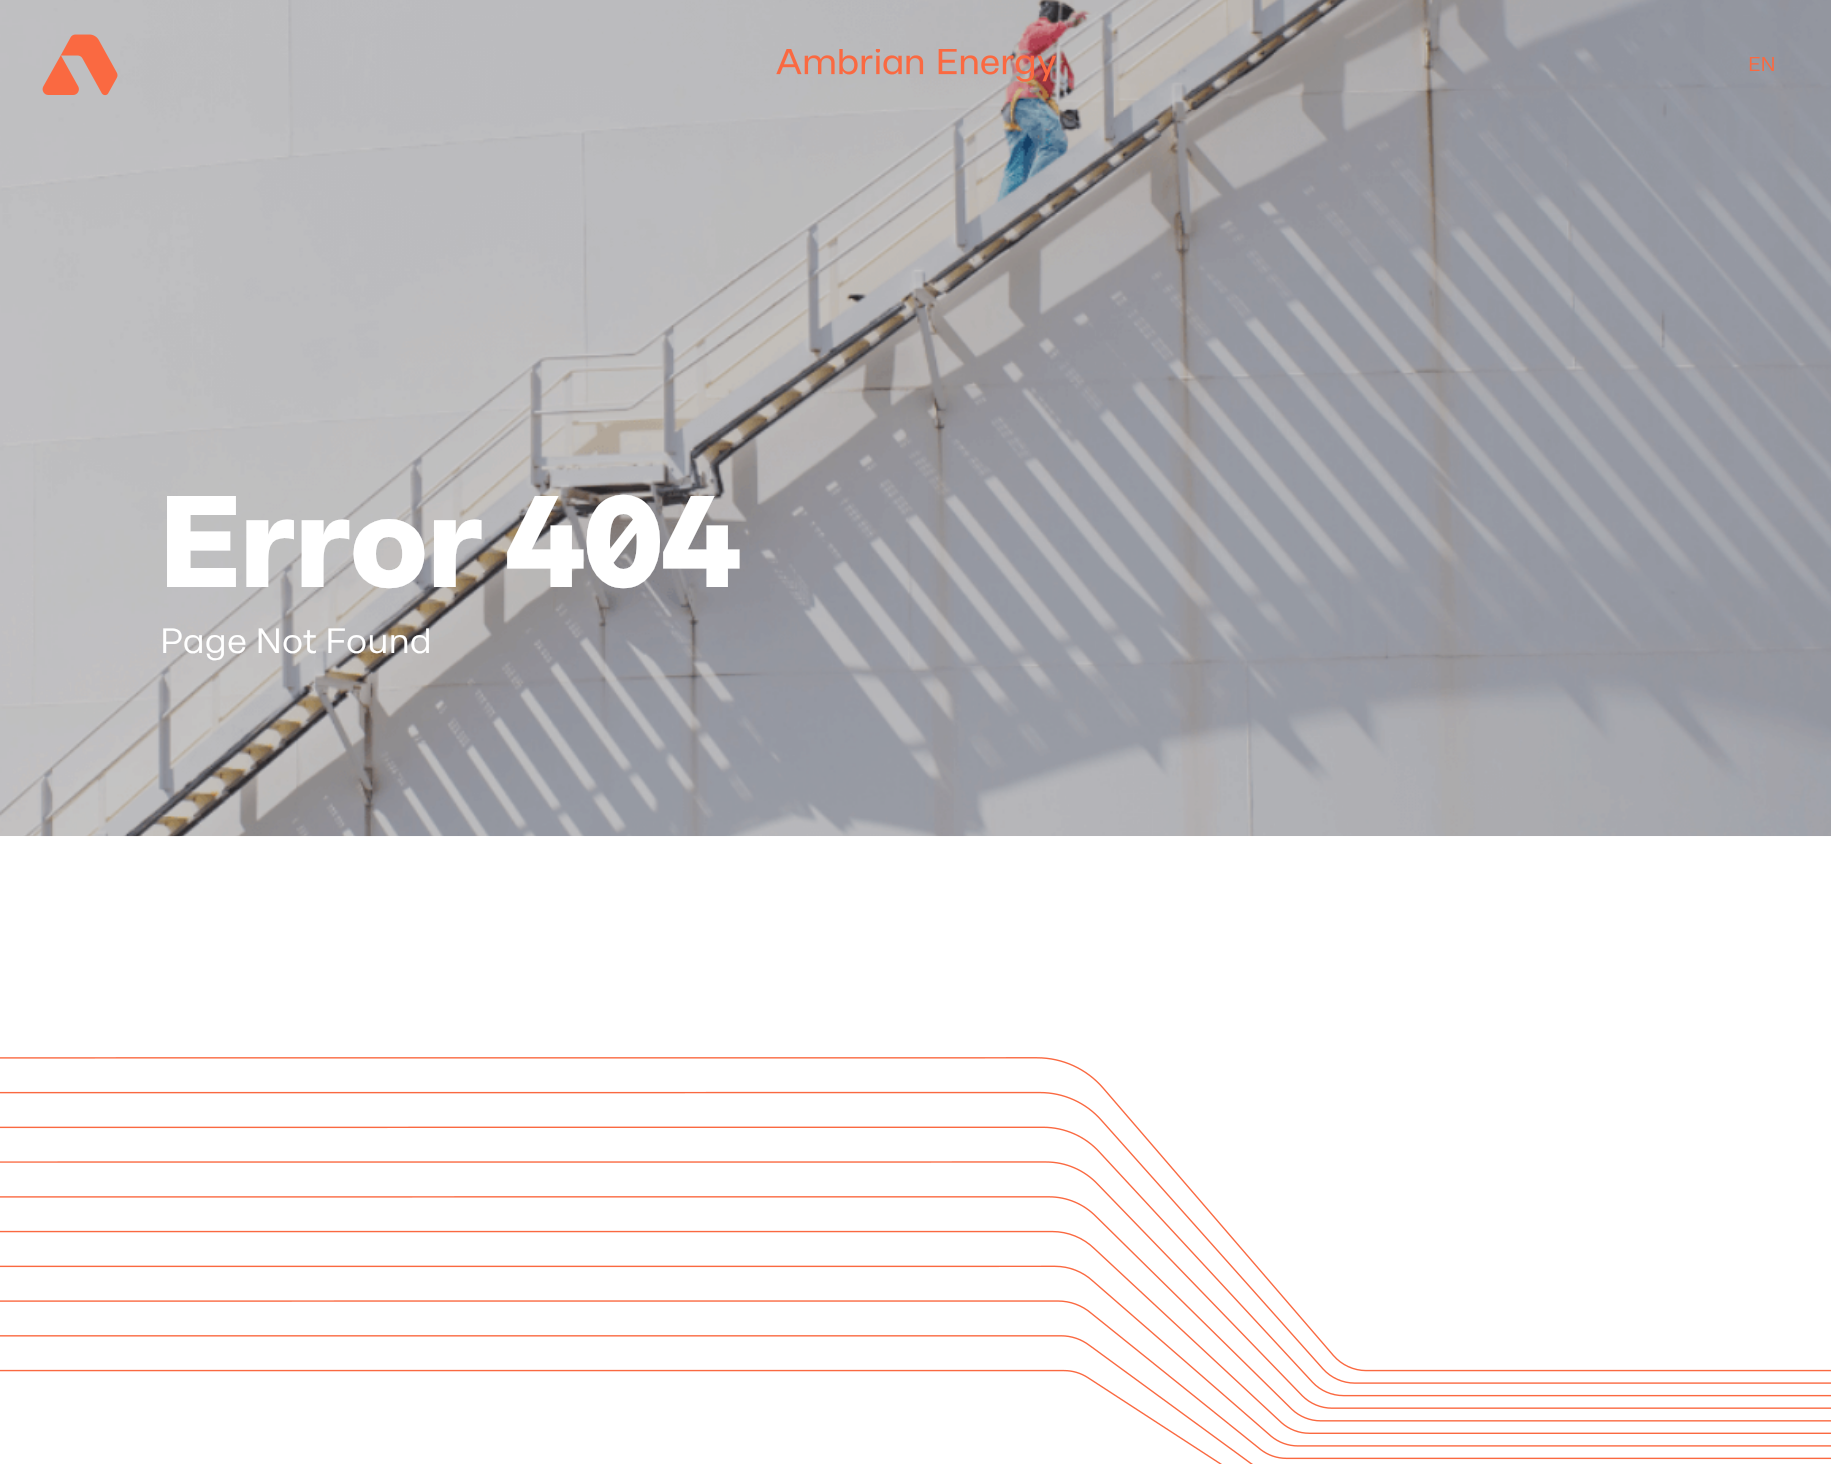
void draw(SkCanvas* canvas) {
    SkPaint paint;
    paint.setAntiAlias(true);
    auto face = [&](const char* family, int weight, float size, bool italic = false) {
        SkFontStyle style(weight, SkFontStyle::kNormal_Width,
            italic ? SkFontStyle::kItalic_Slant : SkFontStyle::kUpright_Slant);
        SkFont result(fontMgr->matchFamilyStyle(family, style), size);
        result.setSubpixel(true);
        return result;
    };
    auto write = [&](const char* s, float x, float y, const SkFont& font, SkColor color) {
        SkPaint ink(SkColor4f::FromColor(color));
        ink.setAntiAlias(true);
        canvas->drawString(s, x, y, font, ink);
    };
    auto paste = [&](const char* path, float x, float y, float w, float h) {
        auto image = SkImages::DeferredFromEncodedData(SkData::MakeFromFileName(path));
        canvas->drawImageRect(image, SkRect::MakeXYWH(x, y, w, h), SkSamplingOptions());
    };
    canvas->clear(SK_ColorWHITE);
    paste("pic3.png", 0, 0, 1831, 837);
    paste("pic1.png", 776, 49, 280, 33);
    paste("pic2.png", 42, 34, 76, 62);
    auto kFont1 = face("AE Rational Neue", 400, 20);
    write("EN", 1748, 71, kFont1, SkColorSetRGB(250, 105, 65));
    auto kFont2 = face("AE Rational Neue", 900, 130);
    write("Error 404", 160, 587, kFont2, SK_ColorWHITE);
    auto kFont3 = face("AE Rational Neue", 400, 35);
    write("Page Not Found", 160, 653, kFont3, SK_ColorWHITE);
    paste("pic4.png", 0, 1057, 1831, 407);
}
